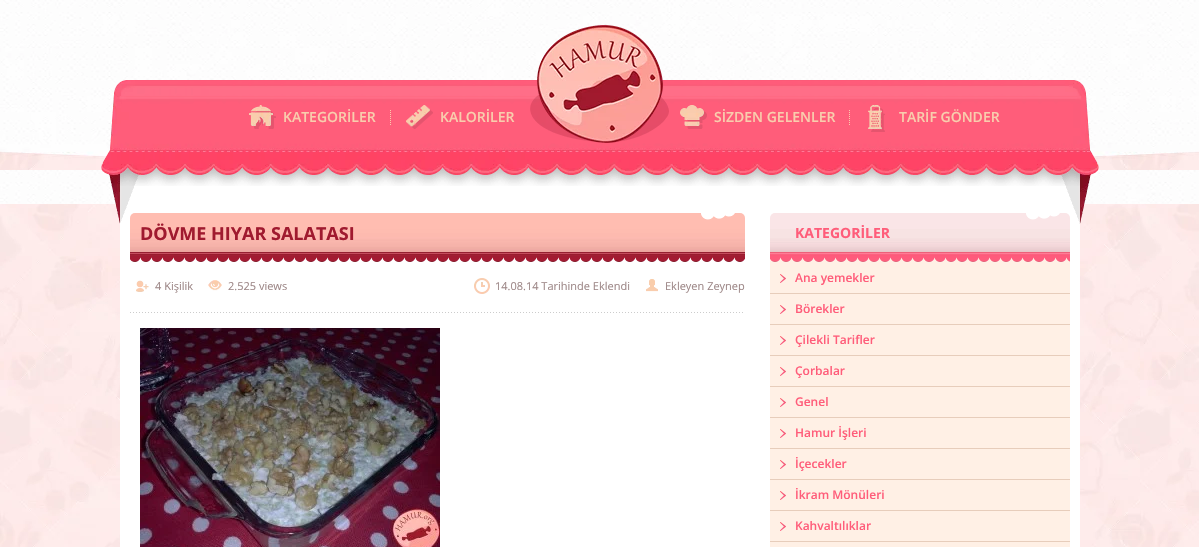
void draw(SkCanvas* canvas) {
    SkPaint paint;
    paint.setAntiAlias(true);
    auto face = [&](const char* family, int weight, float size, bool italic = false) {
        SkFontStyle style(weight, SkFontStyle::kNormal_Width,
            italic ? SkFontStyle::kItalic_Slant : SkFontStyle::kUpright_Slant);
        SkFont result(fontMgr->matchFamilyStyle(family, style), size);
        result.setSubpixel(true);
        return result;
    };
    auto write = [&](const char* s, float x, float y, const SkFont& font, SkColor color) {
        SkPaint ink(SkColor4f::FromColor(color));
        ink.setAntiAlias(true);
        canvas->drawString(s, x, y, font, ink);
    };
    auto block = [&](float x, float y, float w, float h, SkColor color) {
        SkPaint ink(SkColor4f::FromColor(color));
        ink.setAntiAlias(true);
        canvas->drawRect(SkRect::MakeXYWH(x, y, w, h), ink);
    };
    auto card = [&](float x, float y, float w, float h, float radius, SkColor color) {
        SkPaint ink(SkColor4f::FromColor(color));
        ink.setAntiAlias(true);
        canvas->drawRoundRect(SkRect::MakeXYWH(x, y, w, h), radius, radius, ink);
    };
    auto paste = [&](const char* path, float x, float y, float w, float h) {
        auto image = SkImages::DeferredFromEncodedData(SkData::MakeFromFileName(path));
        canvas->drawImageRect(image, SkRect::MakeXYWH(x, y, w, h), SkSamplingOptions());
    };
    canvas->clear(SK_ColorWHITE);
    paste("pic1.png", 0, 149, 1199, 398);
    paste("pic2.png", 0, 0, 1199, 204);
    block(120, 80, 960, 467, SK_ColorWHITE);
    paste("pic10.png", 120, 167, 960, 19);
    paste("pic11.png", 130, 213, 615, 45);
    paste("pic12.png", 701, 213, 34, 7);
    auto kFont1 = face("Open Sans", 700, 18);
    write("DÖVME HIYAR SALATASI", 140, 240, kFont1, SkColorSetRGB(160, 26, 47));
    paste("pic20.png", 770, 213, 300, 45);
    paste("pic21.png", 1026, 213, 34, 7);
    paste("pic3.png", 101, 80, 998, 144);
    paste("pic4.png", 530, 25, 139, 118);
    paste("pic5.png", 390, 110, 1, 15);
    paste("pic6.png", 249, 105, 27, 24);
    auto kFont2 = face("Open Sans", 600, 14);
    write("KATEGORİLER", 283, 122, kFont2, SkColorSetRGB(249, 205, 173));
    paste("pic7.png", 406, 105, 27, 24);
    write("KALORİLER", 440, 122, kFont2, SkColorSetRGB(249, 205, 173));
    paste("pic5.png", 849, 110, 1, 15);
    paste("pic8.png", 680, 105, 27, 24);
    write("SİZDEN GELENLER", 714, 122, kFont2, SkColorSetRGB(249, 205, 173));
    paste("pic9.png", 868, 105, 17, 27);
    write("TARİF GÖNDER", 899, 122, kFont2, SkColorSetRGB(249, 205, 173));
    paste("pic13.png", 130, 252, 615, 10);
    paste("pic14.png", 130, 312, 613, 1);
    paste("pic15.png", 136, 280, 13, 12);
    auto kFont3 = face("Open Sans", 400, 11);
    write("4 Kişilik", 155, 290, kFont3, SkColorSetRGB(157, 135, 135));
    paste("pic16.png", 208, 280, 14, 11);
    write("2.525 views", 228, 290, kFont3, SkColorSetRGB(157, 135, 135));
    paste("pic17.png", 474, 278, 16, 16);
    write("14.08.14 Tarihinde Eklendi", 495, 290, kFont3, SkColorSetRGB(157, 135, 135));
    paste("pic18.png", 646, 279, 12, 13);
    write("Ekleyen Zeynep", 665, 290, kFont3, SkColorSetRGB(157, 135, 135));
    paste("pic19.png", 140, 328, 300, 219);
    auto kFont4 = face("Open Sans", 700, 14);
    write("KATEGORİLER", 795, 238, kFont4, SkColorSetRGB(255, 93, 122));
    card(770, 258, 300, 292, 3, SkColorSetRGB(255, 240, 229));
    paste("pic22.png", 770, 252, 300, 10);
    paste("pic23.png", 780, 274, 6, 9);
    block(770, 293, 300, 1, SkColorSetRGB(231, 205, 187));
    auto kFont5 = face("Open Sans", 600, 12);
    write("Ana yemekler", 795, 282, kFont5, SkColorSetRGB(255, 93, 122));
    paste("pic23.png", 780, 305, 6, 9);
    block(770, 324, 300, 1, SkColorSetRGB(231, 205, 187));
    write("Börekler", 795, 313, kFont5, SkColorSetRGB(255, 93, 122));
    paste("pic23.png", 780, 336, 6, 9);
    block(770, 355, 300, 1, SkColorSetRGB(231, 205, 187));
    write("Çilekli Tarifler", 795, 344, kFont5, SkColorSetRGB(255, 93, 122));
    paste("pic23.png", 780, 367, 6, 9);
    block(770, 386, 300, 1, SkColorSetRGB(231, 205, 187));
    write("Çorbalar", 795, 375, kFont5, SkColorSetRGB(255, 93, 122));
    paste("pic23.png", 780, 398, 6, 9);
    block(770, 417, 300, 1, SkColorSetRGB(231, 205, 187));
    write("Genel", 795, 406, kFont5, SkColorSetRGB(255, 93, 122));
    paste("pic23.png", 780, 429, 6, 9);
    block(770, 448, 300, 1, SkColorSetRGB(231, 205, 187));
    write("Hamur İşleri", 795, 437, kFont5, SkColorSetRGB(255, 93, 122));
    paste("pic23.png", 780, 460, 6, 9);
    block(770, 479, 300, 1, SkColorSetRGB(231, 205, 187));
    write("İçecekler", 795, 468, kFont5, SkColorSetRGB(255, 93, 122));
    paste("pic23.png", 780, 491, 6, 9);
    block(770, 510, 300, 1, SkColorSetRGB(231, 205, 187));
    write("İkram Mönüleri", 795, 499, kFont5, SkColorSetRGB(255, 93, 122));
    paste("pic23.png", 780, 522, 6, 9);
    block(770, 541, 300, 1, SkColorSetRGB(231, 205, 187));
    write("Kahvaltılıklar", 795, 530, kFont5, SkColorSetRGB(255, 93, 122));
}
